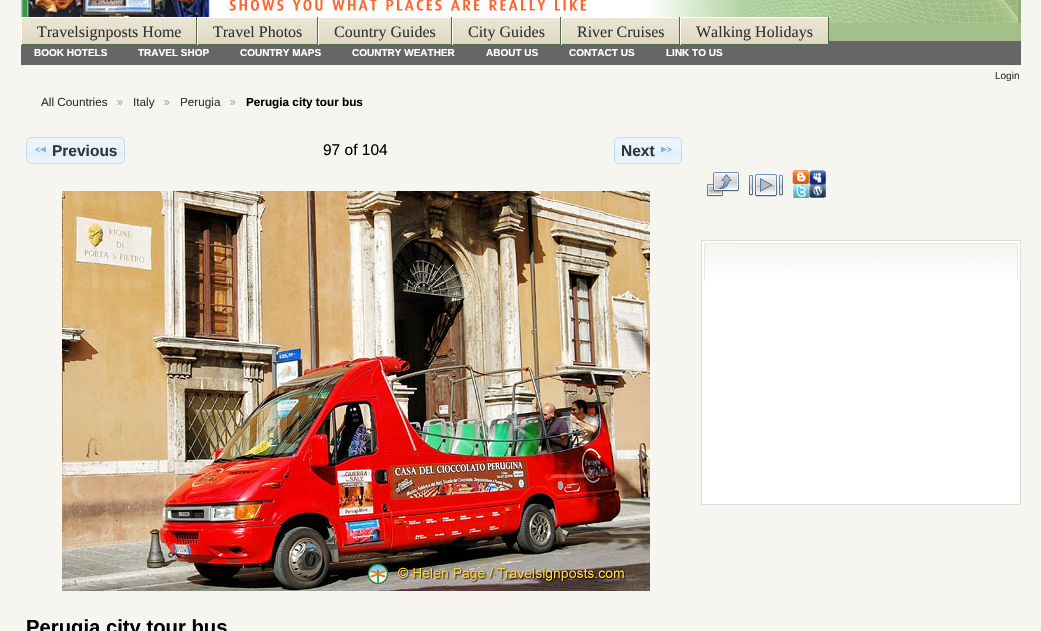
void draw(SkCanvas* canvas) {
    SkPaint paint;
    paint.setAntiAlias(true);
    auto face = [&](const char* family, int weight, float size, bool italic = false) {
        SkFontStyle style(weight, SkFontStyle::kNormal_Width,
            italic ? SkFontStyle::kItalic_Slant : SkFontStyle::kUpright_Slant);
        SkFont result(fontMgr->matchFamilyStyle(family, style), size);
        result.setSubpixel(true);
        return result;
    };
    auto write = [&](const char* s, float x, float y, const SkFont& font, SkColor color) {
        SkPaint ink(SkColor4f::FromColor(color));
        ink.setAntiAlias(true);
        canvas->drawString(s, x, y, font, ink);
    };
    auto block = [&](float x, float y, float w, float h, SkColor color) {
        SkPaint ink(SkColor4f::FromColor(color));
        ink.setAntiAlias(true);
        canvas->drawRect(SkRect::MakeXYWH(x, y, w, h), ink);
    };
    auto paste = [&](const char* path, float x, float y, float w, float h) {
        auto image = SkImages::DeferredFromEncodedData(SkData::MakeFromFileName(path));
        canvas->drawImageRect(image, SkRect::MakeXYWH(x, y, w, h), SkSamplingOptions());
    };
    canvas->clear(SkColorSetRGB(247, 245, 239));
    paste("pic1.png", 21, 0, 1000, 23);
    block(829, 23, 192, 18, SkColorSetRGB(163, 191, 138));
    block(21, 41, 1000, 24, SkColorSetRGB(102, 102, 102));
    paste("pic2.png", 22, 18, 174, 26);
    paste("pic3.png", 198, 18, 119, 26);
    paste("pic4.png", 319, 18, 132, 26);
    paste("pic5.png", 453, 18, 107, 26);
    paste("pic6.png", 562, 18, 117, 26);
    paste("pic7.png", 681, 18, 147, 26);
    auto kFont1 = face("Liberation Serif", 400, 16);
    write("Travelsignposts Home", 37, 37, kFont1, SkColorSetRGB(51, 51, 51));
    block(21, 17, 192, 1, SK_ColorWHITE);
    block(196, 17, 1, 28, SkColorSetRGB(85, 107, 70));
    block(21, 44, 176, 1, SkColorSetRGB(85, 107, 70));
    block(21, 17, 1, 28, SK_ColorWHITE);
    write("Travel Photos", 213, 37, kFont1, SkColorSetRGB(51, 51, 51));
    block(317, 17, 1, 28, SkColorSetRGB(85, 107, 70));
    block(197, 44, 121, 1, SkColorSetRGB(85, 107, 70));
    block(197, 17, 1, 28, SK_ColorWHITE);
    write("Country Guides", 334, 37, kFont1, SkColorSetRGB(51, 51, 51));
    block(451, 17, 1, 28, SkColorSetRGB(85, 107, 70));
    block(318, 44, 134, 1, SkColorSetRGB(85, 107, 70));
    block(318, 17, 1, 28, SK_ColorWHITE);
    write("City Guides", 468, 37, kFont1, SkColorSetRGB(51, 51, 51));
    block(560, 17, 1, 28, SkColorSetRGB(85, 107, 70));
    block(452, 44, 109, 1, SkColorSetRGB(85, 107, 70));
    block(452, 17, 1, 28, SK_ColorWHITE);
    write("River Cruises", 577, 37, kFont1, SkColorSetRGB(51, 51, 51));
    block(648, 17, 181, 1, SK_ColorWHITE);
    block(679, 17, 1, 28, SkColorSetRGB(85, 107, 70));
    block(561, 44, 119, 1, SkColorSetRGB(85, 107, 70));
    block(561, 17, 1, 28, SK_ColorWHITE);
    write("Walking Holidays", 696, 37, kFont1, SkColorSetRGB(51, 51, 51));
    block(828, 17, 1, 28, SkColorSetRGB(85, 107, 70));
    block(680, 44, 149, 1, SkColorSetRGB(85, 107, 70));
    block(680, 17, 1, 28, SK_ColorWHITE);
    auto kFont2 = face("Liberation Sans", 700, 10);
    write("BOOK HOTELS", 34, 56, kFont2, SK_ColorWHITE);
    write("TRAVEL SHOP", 138, 56, kFont2, SK_ColorWHITE);
    write("COUNTRY MAPS", 240, 56, kFont2, SK_ColorWHITE);
    write("COUNTRY WEATHER", 352, 56, kFont2, SK_ColorWHITE);
    write("ABOUT US", 486, 56, kFont2, SK_ColorWHITE);
    write("CONTACT US", 569, 56, kFont2, SK_ColorWHITE);
    write("LINK TO US", 666, 56, kFont2, SK_ColorWHITE);
    auto kFont3 = face("Liberation Sans", 400, 10);
    write("Login", 995, 79, kFont3, SkColorSetRGB(51, 51, 51));
    auto kFont4 = face("Liberation Sans", 400, 11.75f);
    write("All Countries", 41, 106, kFont4, SkColorSetRGB(51, 51, 51));
    paste("pic8.png", 117, 100, 6, 5);
    write("Italy", 133, 106, kFont4, SkColorSetRGB(51, 51, 51));
    paste("pic8.png", 164, 100, 6, 5);
    write("Perugia", 180, 106, kFont4, SkColorSetRGB(51, 51, 51));
    paste("pic8.png", 230, 100, 6, 5);
    auto kFont5 = face("Liberation Sans", 700, 11.75f);
    write("Perugia city tour bus", 246, 106, kFont5, SK_ColorBLACK);
    paste("pic9.png", 26, 137, 99, 27);
    paint.setStyle(SkPaint::kStroke_Style);
    paint.setStrokeWidth(1);
    paint.setColor(SkColorSetRGB(197, 219, 236));
    canvas->drawRoundRect(SkRect::MakeXYWH(26.5f, 137.5f, 98, 26), 4.5f, 4.5f, paint);
    paste("pic10.png", 35, 147, 11, 5);
    auto kFont6 = face("Liberation Sans", 700, 15.5f);
    write("Previous", 52, 156, kFont6, SkColorSetRGB(51, 51, 51));
    auto kFont7 = face("Liberation Sans", 400, 15.5f);
    write("97 of 104", 323, 155, kFont7, SK_ColorBLACK);
    paste("pic11.png", 614, 137, 68, 27);
    canvas->drawRoundRect(SkRect::MakeXYWH(614.5f, 137.5f, 67, 26), 4.5f, 4.5f, paint);
    write("Next", 621, 156, kFont6, SkColorSetRGB(51, 51, 51));
    paste("pic12.png", 661, 147, 11, 5);
    paste("pic13.png", 62, 191, 588, 400);
    auto kFont8 = face("Liberation Sans", 700, 20.25f);
    write("Perugia city tour bus", 26, 634, kFont8, SK_ColorBLACK);
    paste("pic14.png", 707, 172, 32, 25);
    paste("pic15.png", 749, 174, 34, 23);
    paste("pic16.png", 792, 170, 34, 28);
    block(702, 241, 318, 263, SK_ColorWHITE);
    paste("pic17.png", 704, 243, 314, 38);
    paint.setColor(SkColorSetRGB(221, 221, 221));
    canvas->drawRect(SkRect::MakeXYWH(701.5f, 240.5f, 319, 264), paint);
}
